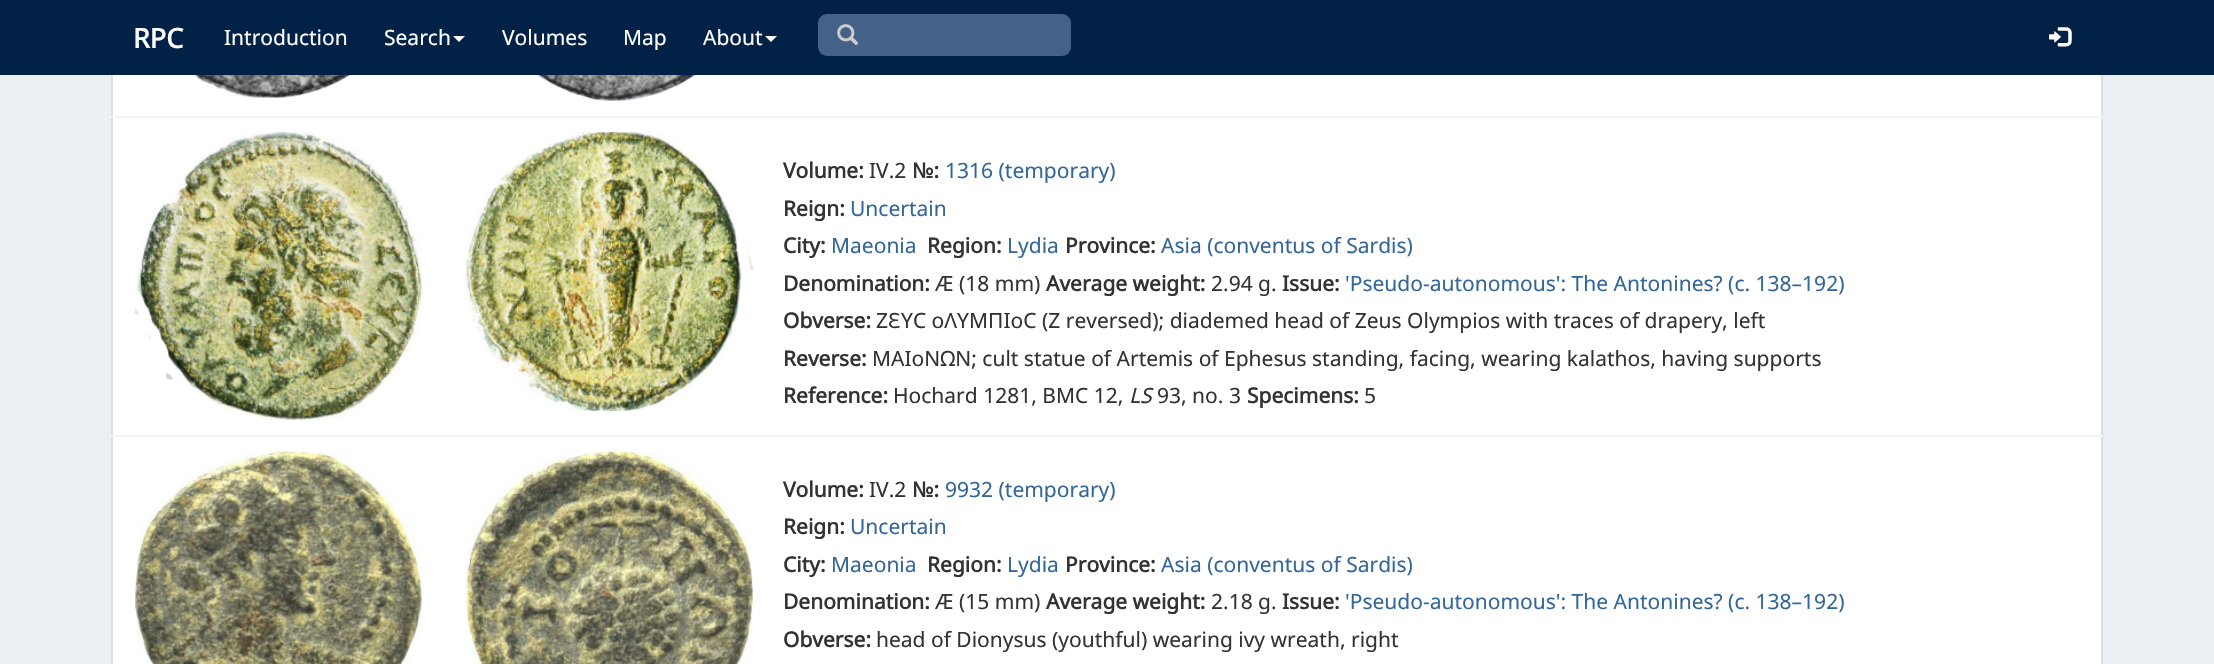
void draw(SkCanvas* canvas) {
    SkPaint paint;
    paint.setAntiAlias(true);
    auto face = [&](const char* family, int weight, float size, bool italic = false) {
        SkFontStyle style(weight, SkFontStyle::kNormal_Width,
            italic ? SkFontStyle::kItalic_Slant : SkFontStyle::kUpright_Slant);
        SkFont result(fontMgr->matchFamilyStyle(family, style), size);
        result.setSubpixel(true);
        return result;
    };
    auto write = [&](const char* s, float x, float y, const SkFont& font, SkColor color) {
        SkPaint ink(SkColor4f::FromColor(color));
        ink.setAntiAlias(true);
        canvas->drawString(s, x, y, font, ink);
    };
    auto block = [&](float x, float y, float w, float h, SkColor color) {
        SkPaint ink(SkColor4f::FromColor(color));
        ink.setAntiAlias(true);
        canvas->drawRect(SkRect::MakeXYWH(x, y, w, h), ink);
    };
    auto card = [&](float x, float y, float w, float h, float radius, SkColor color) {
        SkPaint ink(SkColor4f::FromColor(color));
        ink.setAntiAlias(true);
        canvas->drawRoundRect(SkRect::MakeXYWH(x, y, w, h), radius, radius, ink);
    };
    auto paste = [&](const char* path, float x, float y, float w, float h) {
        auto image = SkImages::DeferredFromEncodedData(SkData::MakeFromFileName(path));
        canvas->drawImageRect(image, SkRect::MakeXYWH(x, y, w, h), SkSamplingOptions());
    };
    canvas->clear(SkColorSetRGB(236, 240, 245));
    block(113, 75, 1988, 589, SK_ColorWHITE);
    paint.setStyle(SkPaint::kStroke_Style);
    paint.setStrokeWidth(2);
    paint.setColor(SkColorSetRGB(221, 221, 221));
    canvas->drawRect(SkRect::MakeXYWH(112, -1, 1990, 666), paint);
    block(0, 0, 2214, 75, SkColorSetRGB(1, 33, 71));
    auto kFont1 = face("Noto Sans", 700, 27);
    write("RPC", 133, 48, kFont1, SK_ColorWHITE);
    auto kFont2 = face("Noto Sans", 400, 21);
    write("Introduction", 224, 45, kFont2, SK_ColorWHITE);
    write("Search", 384, 45, kFont2, SK_ColorWHITE);
    paint.setStyle(SkPaint::kFill_Style);
    paint.setColor(SK_ColorWHITE);
    canvas->drawPath(SkPathBuilder().moveTo(453, 36).lineTo(465, 36).lineTo(459, 42).close().detach(), paint);
    write("Volumes", 502, 45, kFont2, SK_ColorWHITE);
    write("Map", 623, 45, kFont2, SK_ColorWHITE);
    write("About", 703, 45, kFont2, SK_ColorWHITE);
    canvas->drawPath(SkPathBuilder().moveTo(765, 36).lineTo(777, 36).lineTo(771, 42).close().detach(), paint);
    card(818, 14, 253, 42, 9, SkColorSetRGB(68, 97, 135));
    paste("pic1.png", 837, 24, 22, 22);
    paste("pic2.png", 2049, 27, 23, 20);
    paste("pic3.png", 139, 75, 274, 23);
    paste("pic4.png", 477, 75, 272, 26);
    paste("pic5.png", 135, 132, 287, 288);
    paste("pic6.png", 466, 132, 287, 279);
    block(111, 116, 1992, 2, SkColorSetRGB(244, 244, 244));
    auto kFont3 = face("Noto Sans", 700, 21);
    write("Volume:", 783, 178, kFont3, SkColorSetRGB(51, 51, 51));
    write("IV.2", 869, 178, kFont2, SkColorSetRGB(51, 51, 51));
    write("№:", 912, 178, kFont3, SkColorSetRGB(51, 51, 51));
    write("1316 (temporary)", 945, 178, kFont2, SkColorSetRGB(51, 102, 153));
    write("Reign:", 783, 216, kFont3, SkColorSetRGB(51, 51, 51));
    write("Uncertain", 850, 216, kFont2, SkColorSetRGB(51, 102, 153));
    write("City:", 783, 253, kFont3, SkColorSetRGB(51, 51, 51));
    write("Maeonia", 831, 253, kFont2, SkColorSetRGB(51, 102, 153));
    write("Region:", 927, 253, kFont3, SkColorSetRGB(51, 51, 51));
    write("Lydia", 1007, 253, kFont2, SkColorSetRGB(51, 102, 153));
    write("Province:", 1065, 253, kFont3, SkColorSetRGB(51, 51, 51));
    write("Asia (conventus of Sardis)", 1161, 253, kFont2, SkColorSetRGB(51, 102, 153));
    write("Denomination:", 783, 291, kFont3, SkColorSetRGB(51, 51, 51));
    write("Æ (18 mm)", 935, 291, kFont2, SkColorSetRGB(51, 51, 51));
    write("Average weight:", 1046, 291, kFont3, SkColorSetRGB(51, 51, 51));
    write("2.94 g.", 1211, 291, kFont2, SkColorSetRGB(51, 51, 51));
    write("Issue:", 1282, 291, kFont3, SkColorSetRGB(51, 51, 51));
    write("'Pseudo-autonomous': The Antonines? (c. 138–192)", 1345, 291, kFont2, SkColorSetRGB(51, 102, 153));
    write("Obverse:", 783, 328, kFont3, SkColorSetRGB(51, 51, 51));
    write("Ζ", 876, 328, kFont2, SkColorSetRGB(51, 51, 51));
    auto kFont4 = face("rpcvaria", 400, 21);
    write("Ε", 888, 328, kFont4, SkColorSetRGB(51, 51, 51));
    write("ΥϹ οΛΥΜΠΙοϹ (Ζ reversed); diademed head of Zeus Olympios with traces of drapery, left", 901, 328, kFont2, SkColorSetRGB(51, 51, 51));
    write("Reverse:", 783, 366, kFont3, SkColorSetRGB(51, 51, 51));
    write("ΜΑΙοΝΩΝ; cult statue of Artemis of Ephesus standing, facing, wearing kalathos, having supports", 872, 366, kFont2, SkColorSetRGB(51, 51, 51));
    write("Reference:", 783, 403, kFont3, SkColorSetRGB(51, 51, 51));
    write("Hochard 1281, BMC 12,", 893, 403, kFont2, SkColorSetRGB(51, 51, 51));
    auto kFont5 = face("Noto Sans", 400, 21, true);
    write("LS", 1129, 403, kFont5, SkColorSetRGB(51, 51, 51));
    write("93, no. 3", 1157, 403, kFont2, SkColorSetRGB(51, 51, 51));
    write("Specimens:", 1247, 403, kFont3, SkColorSetRGB(51, 51, 51));
    write("5", 1364, 403, kFont2, SkColorSetRGB(51, 51, 51));
    paste("pic7.png", 135, 451, 287, 213);
    paste("pic8.png", 466, 451, 287, 213);
    block(111, 435, 1992, 2, SkColorSetRGB(244, 244, 244));
    write("Volume:", 783, 497, kFont3, SkColorSetRGB(51, 51, 51));
    write("IV.2", 869, 497, kFont2, SkColorSetRGB(51, 51, 51));
    write("№:", 912, 497, kFont3, SkColorSetRGB(51, 51, 51));
    write("9932 (temporary)", 945, 497, kFont2, SkColorSetRGB(51, 102, 153));
    write("Reign:", 783, 534, kFont3, SkColorSetRGB(51, 51, 51));
    write("Uncertain", 850, 534, kFont2, SkColorSetRGB(51, 102, 153));
    write("City:", 783, 572, kFont3, SkColorSetRGB(51, 51, 51));
    write("Maeonia", 831, 572, kFont2, SkColorSetRGB(51, 102, 153));
    write("Region:", 927, 572, kFont3, SkColorSetRGB(51, 51, 51));
    write("Lydia", 1007, 572, kFont2, SkColorSetRGB(51, 102, 153));
    write("Province:", 1065, 572, kFont3, SkColorSetRGB(51, 51, 51));
    write("Asia (conventus of Sardis)", 1161, 572, kFont2, SkColorSetRGB(51, 102, 153));
    write("Denomination:", 783, 609, kFont3, SkColorSetRGB(51, 51, 51));
    write("Æ (15 mm)", 935, 609, kFont2, SkColorSetRGB(51, 51, 51));
    write("Average weight:", 1046, 609, kFont3, SkColorSetRGB(51, 51, 51));
    write("2.18 g.", 1211, 609, kFont2, SkColorSetRGB(51, 51, 51));
    write("Issue:", 1282, 609, kFont3, SkColorSetRGB(51, 51, 51));
    write("'Pseudo-autonomous': The Antonines? (c. 138–192)", 1345, 609, kFont2, SkColorSetRGB(51, 102, 153));
    write("Obverse:", 783, 647, kFont3, SkColorSetRGB(51, 51, 51));
    write("head of Dionysus (youthful) wearing ivy wreath, right", 876, 647, kFont2, SkColorSetRGB(51, 51, 51));
}
